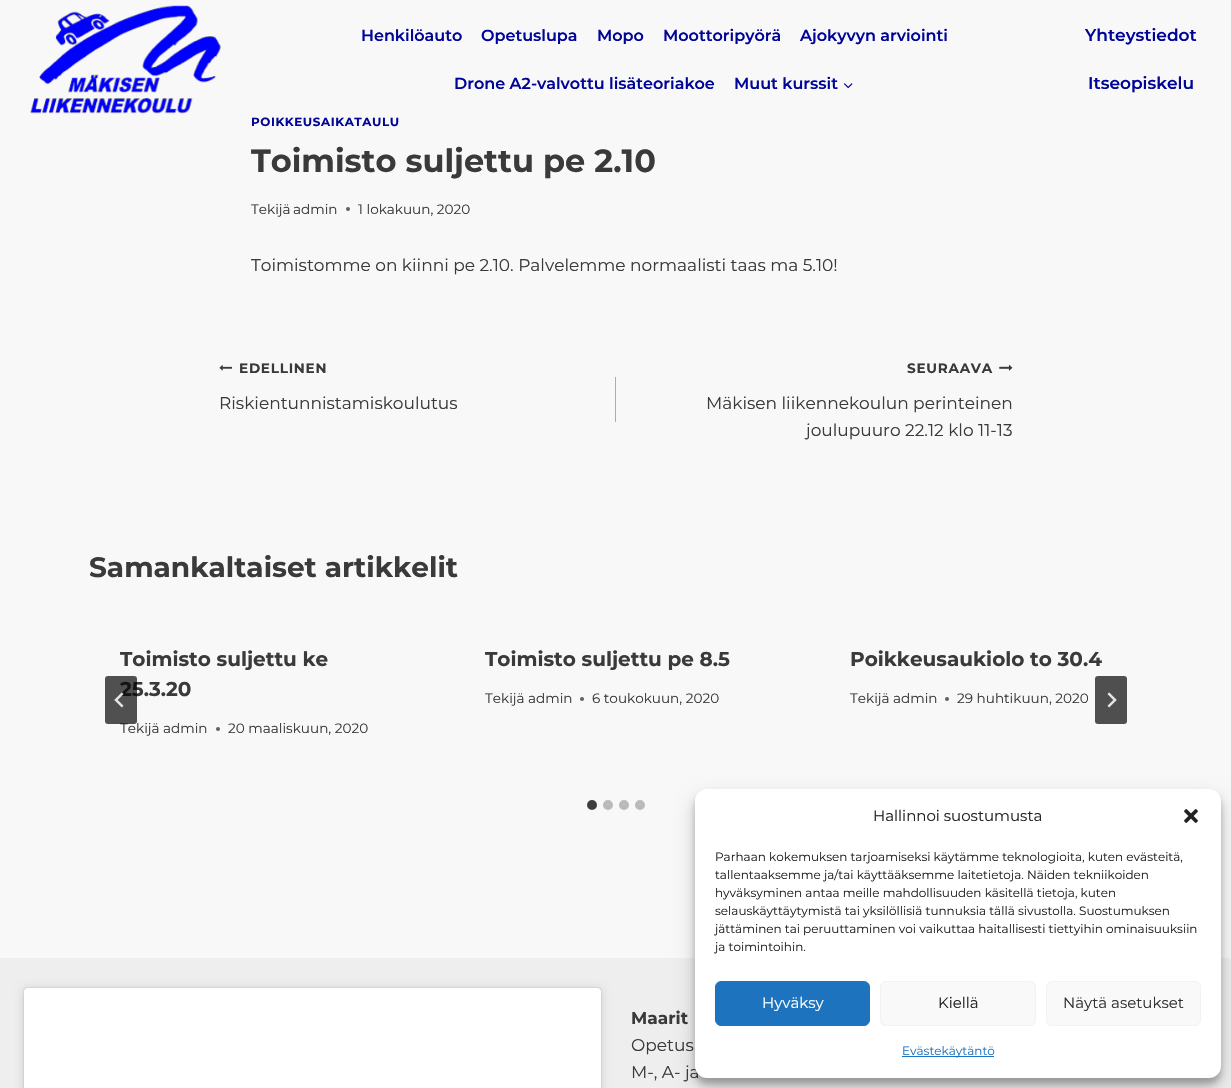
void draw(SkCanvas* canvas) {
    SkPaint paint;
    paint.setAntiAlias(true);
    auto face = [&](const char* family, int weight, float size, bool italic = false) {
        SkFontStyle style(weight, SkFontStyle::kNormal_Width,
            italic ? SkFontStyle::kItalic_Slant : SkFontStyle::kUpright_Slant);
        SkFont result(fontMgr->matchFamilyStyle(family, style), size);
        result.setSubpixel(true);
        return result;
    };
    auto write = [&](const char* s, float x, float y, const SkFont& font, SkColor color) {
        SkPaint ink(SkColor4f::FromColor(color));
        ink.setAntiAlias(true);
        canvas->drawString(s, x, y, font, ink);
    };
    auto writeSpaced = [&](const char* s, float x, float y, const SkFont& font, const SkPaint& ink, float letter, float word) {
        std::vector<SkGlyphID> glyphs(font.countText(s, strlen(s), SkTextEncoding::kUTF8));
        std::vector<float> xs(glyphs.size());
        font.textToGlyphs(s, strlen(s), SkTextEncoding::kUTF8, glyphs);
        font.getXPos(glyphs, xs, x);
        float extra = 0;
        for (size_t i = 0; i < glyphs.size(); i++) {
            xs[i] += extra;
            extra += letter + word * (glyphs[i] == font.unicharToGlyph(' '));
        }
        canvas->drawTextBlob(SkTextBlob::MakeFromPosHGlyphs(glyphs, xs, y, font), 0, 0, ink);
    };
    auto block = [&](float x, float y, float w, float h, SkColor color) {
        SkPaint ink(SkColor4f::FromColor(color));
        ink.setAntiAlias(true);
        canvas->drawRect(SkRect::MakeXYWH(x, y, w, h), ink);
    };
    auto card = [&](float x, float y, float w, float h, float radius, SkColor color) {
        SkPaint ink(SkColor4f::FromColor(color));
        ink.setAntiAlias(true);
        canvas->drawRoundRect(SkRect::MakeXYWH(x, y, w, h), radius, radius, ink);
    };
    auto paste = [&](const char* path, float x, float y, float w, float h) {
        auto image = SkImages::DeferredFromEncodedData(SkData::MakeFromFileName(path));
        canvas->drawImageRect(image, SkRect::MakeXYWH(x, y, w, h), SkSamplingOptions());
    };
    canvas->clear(SkColorSetRGB(248, 248, 248));
    paste("pic1.png", 30, 5, 191, 109);
    auto kFont1 = face("Montserrat", 600, 16);
    write("Henkilöauto", 361, 41, kFont1, SkColorSetRGB(0, 5, 152));
    write("Opetuslupa", 481, 41, kFont1, SkColorSetRGB(0, 5, 152));
    write("Mopo", 597, 41, kFont1, SkColorSetRGB(0, 5, 152));
    write("Moottoripyörä", 663, 41, kFont1, SkColorSetRGB(0, 5, 152));
    write("Ajokyvyn arviointi", 800, 41, kFont1, SkColorSetRGB(0, 5, 152));
    write("Drone A2-valvottu lisäteoriakoe", 454, 89, kFont1, SkColorSetRGB(0, 5, 152));
    write("Muut kurssit", 734, 89, kFont1, SkColorSetRGB(0, 5, 152));
    paste("pic2.png", 844, 83, 9, 6);
    auto kFont2 = face("Montserrat", 600, 17);
    write("Yhteystiedot", 1085, 41, kFont2, SkColorSetRGB(0, 5, 152));
    write("Itseopiskelu", 1088, 89, kFont2, SkColorSetRGB(0, 5, 152));
    auto kFont3 = face("Montserrat", 700, 11.9f);
    paint.setColor(SkColorSetRGB(0, 5, 152));
    writeSpaced("POIKKEUSAIKATAULU", 251, 126, kFont3, paint, 0.6f, 0);
    auto kFont4 = face("Montserrat", 700, 32);
    write("Toimisto suljettu pe 2.10", 251, 172, kFont4, SkColorSetRGB(58, 58, 58));
    auto kFont5 = face("Montserrat", 400, 13.6f);
    write("Tekijä", 251, 214, kFont5, SkColorSetRGB(58, 58, 58));
    write("admin", 293, 214, kFont5, SkColorSetRGB(58, 58, 58));
    paint.setColor(SkColorSetRGB(96, 96, 96));
    canvas->drawCircle(348, 209, 2, paint);
    write("1 lokakuun, 2020", 358, 214, kFont5, SkColorSetRGB(58, 58, 58));
    auto kFont6 = face("Montserrat", 400, 17);
    write("Toimistomme on kiinni pe 2.10. Palvelemme normaalisti taas ma 5.10!", 251, 271, kFont6, SkColorSetRGB(58, 58, 58));
    paste("pic3.png", 219, 365, 13, 6);
    auto kFont7 = face("Montserrat", 700, 13.6f);
    paint.setColor(SkColorSetRGB(58, 58, 58));
    writeSpaced("EDELLINEN", 239, 373, kFont7, paint, 0.75f, 0);
    write("Riskientunnistamiskoulutus", 219, 409, kFont6, SkColorSetRGB(58, 58, 58));
    block(615, 377, 1, 45, SkColorSetRGB(160, 174, 192));
    writeSpaced("SEURAAVA", 907, 373, kFont7, paint, 0.75f, 0);
    paste("pic4.png", 999, 364, 14, 7);
    write("Mäkisen liikennekoulun perinteinen", 706, 409, kFont6, SkColorSetRGB(58, 58, 58));
    write("joulupuuro 22.12 klo 11-13", 806, 436, kFont6, SkColorSetRGB(58, 58, 58));
    auto kFont8 = face("Montserrat", 700, 28);
    write("Samankaltaiset artikkelit", 89, 577, kFont8, SkColorSetRGB(58, 58, 58));
    auto kFont9 = face("Montserrat", 700, 20);
    write("Toimisto suljettu ke", 120, 666, kFont9, SkColorSetRGB(58, 58, 58));
    write("25.3.20", 120, 696, kFont9, SkColorSetRGB(58, 58, 58));
    write("Tekijä", 120, 733, kFont5, SkColorSetRGB(58, 58, 58));
    write("admin", 163, 733, kFont5, SkColorSetRGB(58, 58, 58));
    paint.setColor(SkColorSetRGB(96, 96, 96));
    canvas->drawCircle(218, 729, 2, paint);
    write("20 maaliskuun, 2020", 228, 733, kFont5, SkColorSetRGB(58, 58, 58));
    write("Toimisto suljettu pe 8.5", 485, 666, kFont9, SkColorSetRGB(58, 58, 58));
    write("Tekijä", 485, 703, kFont5, SkColorSetRGB(58, 58, 58));
    write("admin", 528, 703, kFont5, SkColorSetRGB(58, 58, 58));
    canvas->drawCircle(582, 699, 2, paint);
    write("6 toukokuun, 2020", 592, 703, kFont5, SkColorSetRGB(58, 58, 58));
    write("Poikkeusaukiolo to 30.4", 850, 666, kFont9, SkColorSetRGB(58, 58, 58));
    write("Tekijä", 850, 703, kFont5, SkColorSetRGB(58, 58, 58));
    write("admin", 893, 703, kFont5, SkColorSetRGB(58, 58, 58));
    canvas->drawCircle(947, 699, 2, paint);
    write("29 huhtikuun, 2020", 957, 703, kFont5, SkColorSetRGB(58, 58, 58));
    card(105, 676, 32, 48, 3, SkColorSetARGB(173, 0, 0, 0));
    paste("pic5.png", 114, 692, 10, 16);
    card(1095, 676, 32, 48, 3, SkColorSetRGB(79, 79, 79));
    paste("pic6.png", 1107, 692, 10, 16);
    paint.setColor(SkColorSetRGB(62, 62, 62));
    canvas->drawCircle(592, 805, 5, paint);
    paint.setColor(SkColorSetRGB(186, 186, 186));
    canvas->drawCircle(608, 805, 5, paint);
    canvas->drawCircle(624, 805, 5, paint);
    canvas->drawCircle(640, 805, 5, paint);
    block(0, 958, 1231, 130, SkColorSetRGB(238, 238, 238));
    paint.setColor(SkColorSetARGB(38, 0, 0, 0));
    paint.setMaskFilter(SkMaskFilter::MakeBlur(kNormal_SkBlurStyle, 5));
    canvas->drawRoundRect(SkRect::MakeXYWH(24, 989, 577, 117), 3, 3, paint);
    paint.setMaskFilter(nullptr);
    paint.setColor(SkColorSetARGB(128, 0, 0, 0));
    paint.setMaskFilter(SkMaskFilter::MakeBlur(kNormal_SkBlurStyle, 0.5f));
    canvas->drawRoundRect(SkRect::MakeXYWH(24, 988, 577, 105), 3, 3, paint);
    paint.setMaskFilter(nullptr);
    card(24, 988, 577, 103, 3, SK_ColorWHITE);
    auto kFont10 = face("Montserrat", 700, 17);
    write("Maarit", 631, 1024, kFont10, SkColorSetRGB(58, 58, 58));
    write("Opetus", 631, 1051, kFont6, SkColorSetRGB(58, 58, 58));
    write("M-, A- ja", 631, 1078, kFont6, SkColorSetRGB(58, 58, 58));
    paint.setColor(SkColorSetARGB(59, 0, 0, 0));
    paint.setMaskFilter(SkMaskFilter::MakeBlur(kNormal_SkBlurStyle, 3));
    canvas->drawRoundRect(SkRect::MakeXYWH(695, 795, 526, 289), 12, 12, paint);
    paint.setMaskFilter(nullptr);
    paint.setColor(SkColorSetARGB(48, 0, 0, 0));
    paint.setMaskFilter(SkMaskFilter::MakeBlur(kNormal_SkBlurStyle, 10));
    canvas->drawRoundRect(SkRect::MakeXYWH(695, 799, 526, 289), 12, 12, paint);
    paint.setMaskFilter(nullptr);
    card(695, 789, 526, 289, 12, SK_ColorWHITE);
    auto kFont11 = face("Montserrat", 400, 15);
    write("Hallinnoi suostumusta", 873, 821, kFont11, SkColorSetRGB(34, 34, 34));
    paste("pic7.png", 1184, 809, 14, 14);
    auto kFont12 = face("Montserrat", 400, 12);
    write("Parhaan kokemuksen tarjoamiseksi käytämme teknologioita, kuten evästeitä,", 715, 861, kFont12, SkColorSetRGB(34, 34, 34));
    write("tallentaaksemme ja/tai käyttääksemme laitetietoja. Näiden tekniikoiden", 715, 879, kFont12, SkColorSetRGB(34, 34, 34));
    write("hyväksyminen antaa meille mahdollisuuden käsitellä tietoja, kuten", 715, 897, kFont12, SkColorSetRGB(34, 34, 34));
    write("selauskäyttäytymistä tai yksilöllisiä tunnuksia tällä sivustolla. Suostumuksen", 715, 915, kFont12, SkColorSetRGB(34, 34, 34));
    write("jättäminen tai peruuttaminen voi vaikuttaa haitallisesti tiettyihin ominaisuuksiin", 715, 933, kFont12, SkColorSetRGB(34, 34, 34));
    write("ja toimintoihin.", 715, 951, kFont12, SkColorSetRGB(34, 34, 34));
    paint.setColor(SkColorSetRGB(30, 115, 190));
    canvas->drawRoundRect(SkRect::MakeXYWH(715.5f, 981.5f, 154, 44), 5.5f, 5.5f, paint);
    paint.setStyle(SkPaint::kStroke_Style);
    paint.setStrokeWidth(1);
    canvas->drawRoundRect(SkRect::MakeXYWH(715.5f, 981.5f, 154, 44), 5.5f, 5.5f, paint);
    write("Hyväksy", 762, 1008, kFont11, SK_ColorWHITE);
    paint.setStyle(SkPaint::kFill_Style);
    paint.setColor(SkColorSetRGB(249, 249, 249));
    canvas->drawRoundRect(SkRect::MakeXYWH(880.5f, 981.5f, 155, 44), 5.5f, 5.5f, paint);
    paint.setStyle(SkPaint::kStroke_Style);
    paint.setColor(SkColorSetRGB(242, 242, 242));
    canvas->drawRoundRect(SkRect::MakeXYWH(880.5f, 981.5f, 155, 44), 5.5f, 5.5f, paint);
    write("Kiellä", 938, 1008, kFont11, SkColorSetRGB(34, 34, 34));
    paint.setStyle(SkPaint::kFill_Style);
    paint.setColor(SkColorSetRGB(249, 249, 249));
    canvas->drawRoundRect(SkRect::MakeXYWH(1046.5f, 981.5f, 154, 44), 5.5f, 5.5f, paint);
    paint.setStyle(SkPaint::kStroke_Style);
    paint.setColor(SkColorSetRGB(242, 242, 242));
    canvas->drawRoundRect(SkRect::MakeXYWH(1046.5f, 981.5f, 154, 44), 5.5f, 5.5f, paint);
    write("Näytä asetukset", 1063, 1008, kFont11, SkColorSetRGB(51, 51, 51));
    block(902, 1056, 92, 1, SkColorSetRGB(30, 115, 190));
    write("Evästekäytäntö", 902, 1055, kFont12, SkColorSetRGB(30, 115, 190));
}
